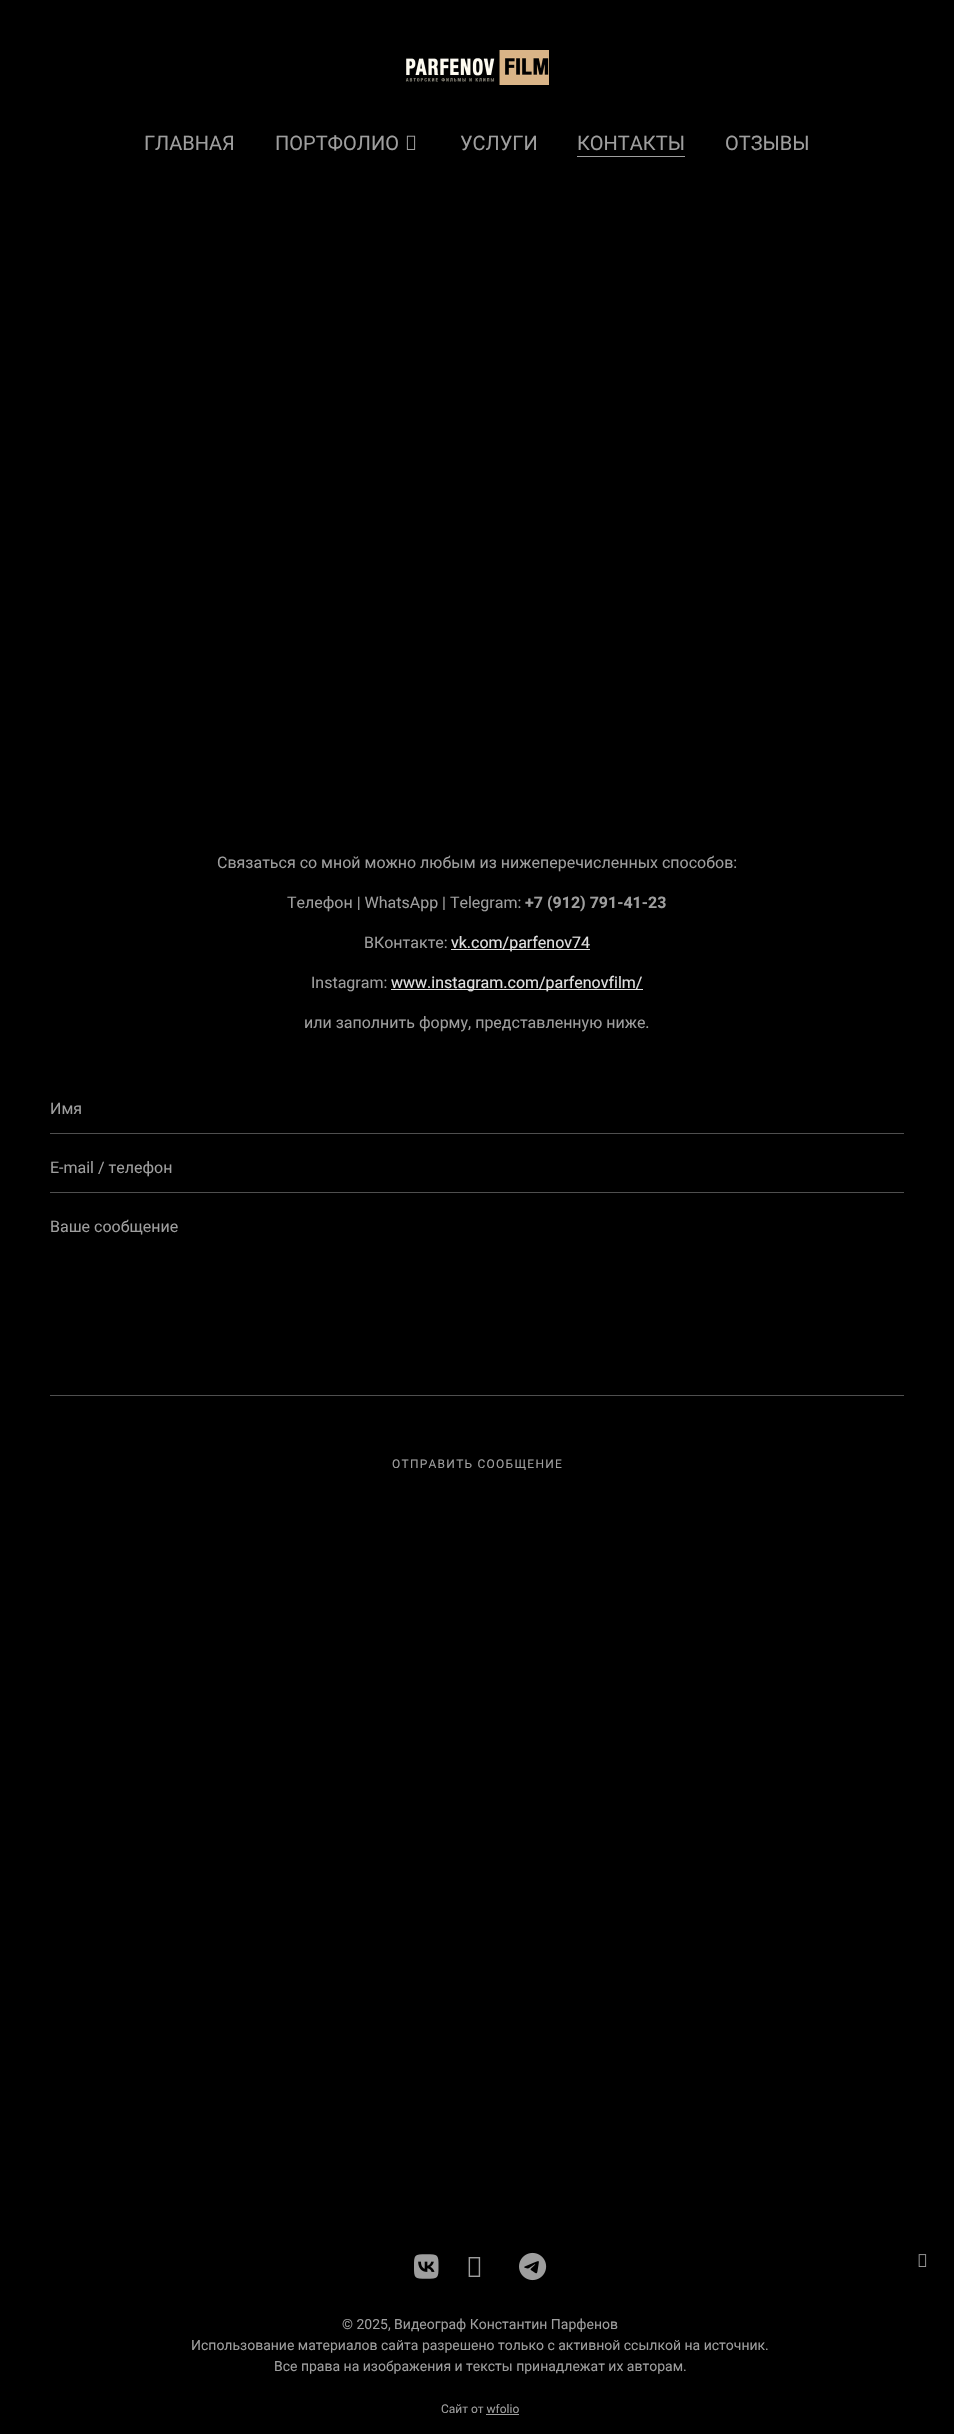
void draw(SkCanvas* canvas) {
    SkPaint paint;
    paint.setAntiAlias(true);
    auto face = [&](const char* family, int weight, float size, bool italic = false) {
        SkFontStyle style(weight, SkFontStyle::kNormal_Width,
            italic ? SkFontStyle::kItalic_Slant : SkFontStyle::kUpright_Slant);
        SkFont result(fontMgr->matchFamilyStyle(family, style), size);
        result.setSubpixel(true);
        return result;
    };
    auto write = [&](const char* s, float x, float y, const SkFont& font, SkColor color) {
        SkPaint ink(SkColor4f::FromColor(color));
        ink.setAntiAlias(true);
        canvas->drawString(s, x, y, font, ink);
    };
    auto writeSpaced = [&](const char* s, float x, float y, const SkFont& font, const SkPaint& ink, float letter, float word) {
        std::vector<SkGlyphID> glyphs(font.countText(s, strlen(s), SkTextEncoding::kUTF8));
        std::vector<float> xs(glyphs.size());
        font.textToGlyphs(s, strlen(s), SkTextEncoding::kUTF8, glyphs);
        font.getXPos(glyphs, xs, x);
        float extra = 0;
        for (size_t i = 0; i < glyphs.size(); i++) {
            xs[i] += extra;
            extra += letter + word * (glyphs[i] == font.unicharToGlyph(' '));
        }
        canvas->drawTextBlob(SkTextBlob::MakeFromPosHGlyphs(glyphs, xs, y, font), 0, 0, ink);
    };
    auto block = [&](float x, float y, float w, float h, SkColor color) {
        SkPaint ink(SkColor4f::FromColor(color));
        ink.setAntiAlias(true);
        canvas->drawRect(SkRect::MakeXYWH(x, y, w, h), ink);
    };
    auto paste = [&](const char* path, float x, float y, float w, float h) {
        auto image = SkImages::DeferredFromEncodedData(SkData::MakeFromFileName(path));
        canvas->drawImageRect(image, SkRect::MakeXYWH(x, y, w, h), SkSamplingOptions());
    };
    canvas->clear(SK_ColorBLACK);
    paste("pic1.png", 405, 50, 144, 35);
    auto kFont1 = face("Roboto", 400, 20);
    write("ГЛАВНАЯ", 144, 150, kFont1, SkColorSetRGB(158, 158, 158));
    write("ПОРТФОЛИО", 275, 150, kFont1, SkColorSetRGB(158, 158, 158));
    paste("pic2.png", 406, 135, 10, 15);
    write("УСЛУГИ", 460, 150, kFont1, SkColorSetRGB(158, 158, 158));
    write("КОНТАКТЫ", 577, 150, kFont1, SkColorSetRGB(158, 158, 158));
    block(577, 156, 108, 1, SkColorSetRGB(158, 158, 158));
    write("ОТЗЫВЫ", 725, 150, kFont1, SkColorSetRGB(158, 158, 158));
    auto kFont2 = face("Roboto", 400, 16);
    write("Связаться со мной можно любым из нижеперечисленных способов:", 217, 868, kFont2, SkColorSetRGB(158, 158, 158));
    write("Телефон | WhatsApp | Telegram:", 287, 908, kFont2, SkColorSetRGB(158, 158, 158));
    auto kFont3 = face("Roboto", 700, 16);
    write("+7 (912) 791-41-23", 525, 908, kFont3, SkColorSetRGB(158, 158, 158));
    write("ВКонтакте:", 364, 948, kFont2, SkColorSetRGB(158, 158, 158));
    block(451, 949, 139, 1, SkColorSetRGB(224, 224, 224));
    write("vk.com/parfenov74", 451, 948, kFont2, SkColorSetRGB(224, 224, 224));
    write("Instagram:", 311, 988, kFont2, SkColorSetRGB(158, 158, 158));
    block(391, 989, 252, 1, SkColorSetRGB(224, 224, 224));
    write("www.instagram.com/parfenovfilm/", 391, 988, kFont2, SkColorSetRGB(224, 224, 224));
    write("или заполнить форму, представленную ниже.", 304, 1028, kFont2, SkColorSetRGB(158, 158, 158));
    block(50, 1133, 854, 1, SkColorSetRGB(79, 79, 79));
    write("Имя", 50, 1114, kFont2, SkColorSetRGB(158, 158, 158));
    block(50, 1192, 854, 1, SkColorSetRGB(79, 79, 79));
    write("E-mail / телефон", 50, 1173, kFont2, SkColorSetRGB(158, 158, 158));
    block(50, 1395, 854, 1, SkColorSetRGB(79, 79, 79));
    write("Ваше сообщение", 50, 1232, kFont2, SkColorSetRGB(158, 158, 158));
    auto kFont4 = face("Roboto", 400, 12);
    paint.setColor(SkColorSetRGB(158, 158, 158));
    writeSpaced("ОТПРАВИТЬ СООБЩЕНИЕ", 392, 1468, kFont4, paint, 1.25f, 0);
    paste("pic3.png", 414, 2254, 25, 25);
    paste("pic4.png", 468, 2257, 13, 20);
    paste("pic5.png", 519, 2252, 28, 29);
    auto kFont5 = face("Roboto", 400, 14);
    write("© 2025, Видеограф Константин Парфенов", 342, 2329, kFont5, SkColorSetRGB(158, 158, 158));
    write("Использование материалов сайта разрешено только с активной ссылкой на источник.", 191, 2350, kFont5, SkColorSetRGB(158, 158, 158));
    write("Все права на изображения и тексты принадлежат их авторам.", 274, 2371, kFont5, SkColorSetRGB(158, 158, 158));
    write("Сайт от wfolio", 441, 2413, kFont4, SkColorSetRGB(158, 158, 158));
    block(486, 2414, 33, 1, SkColorSetRGB(158, 158, 158));
    paste("pic6.png", 918, 2254, 9, 13);
}
